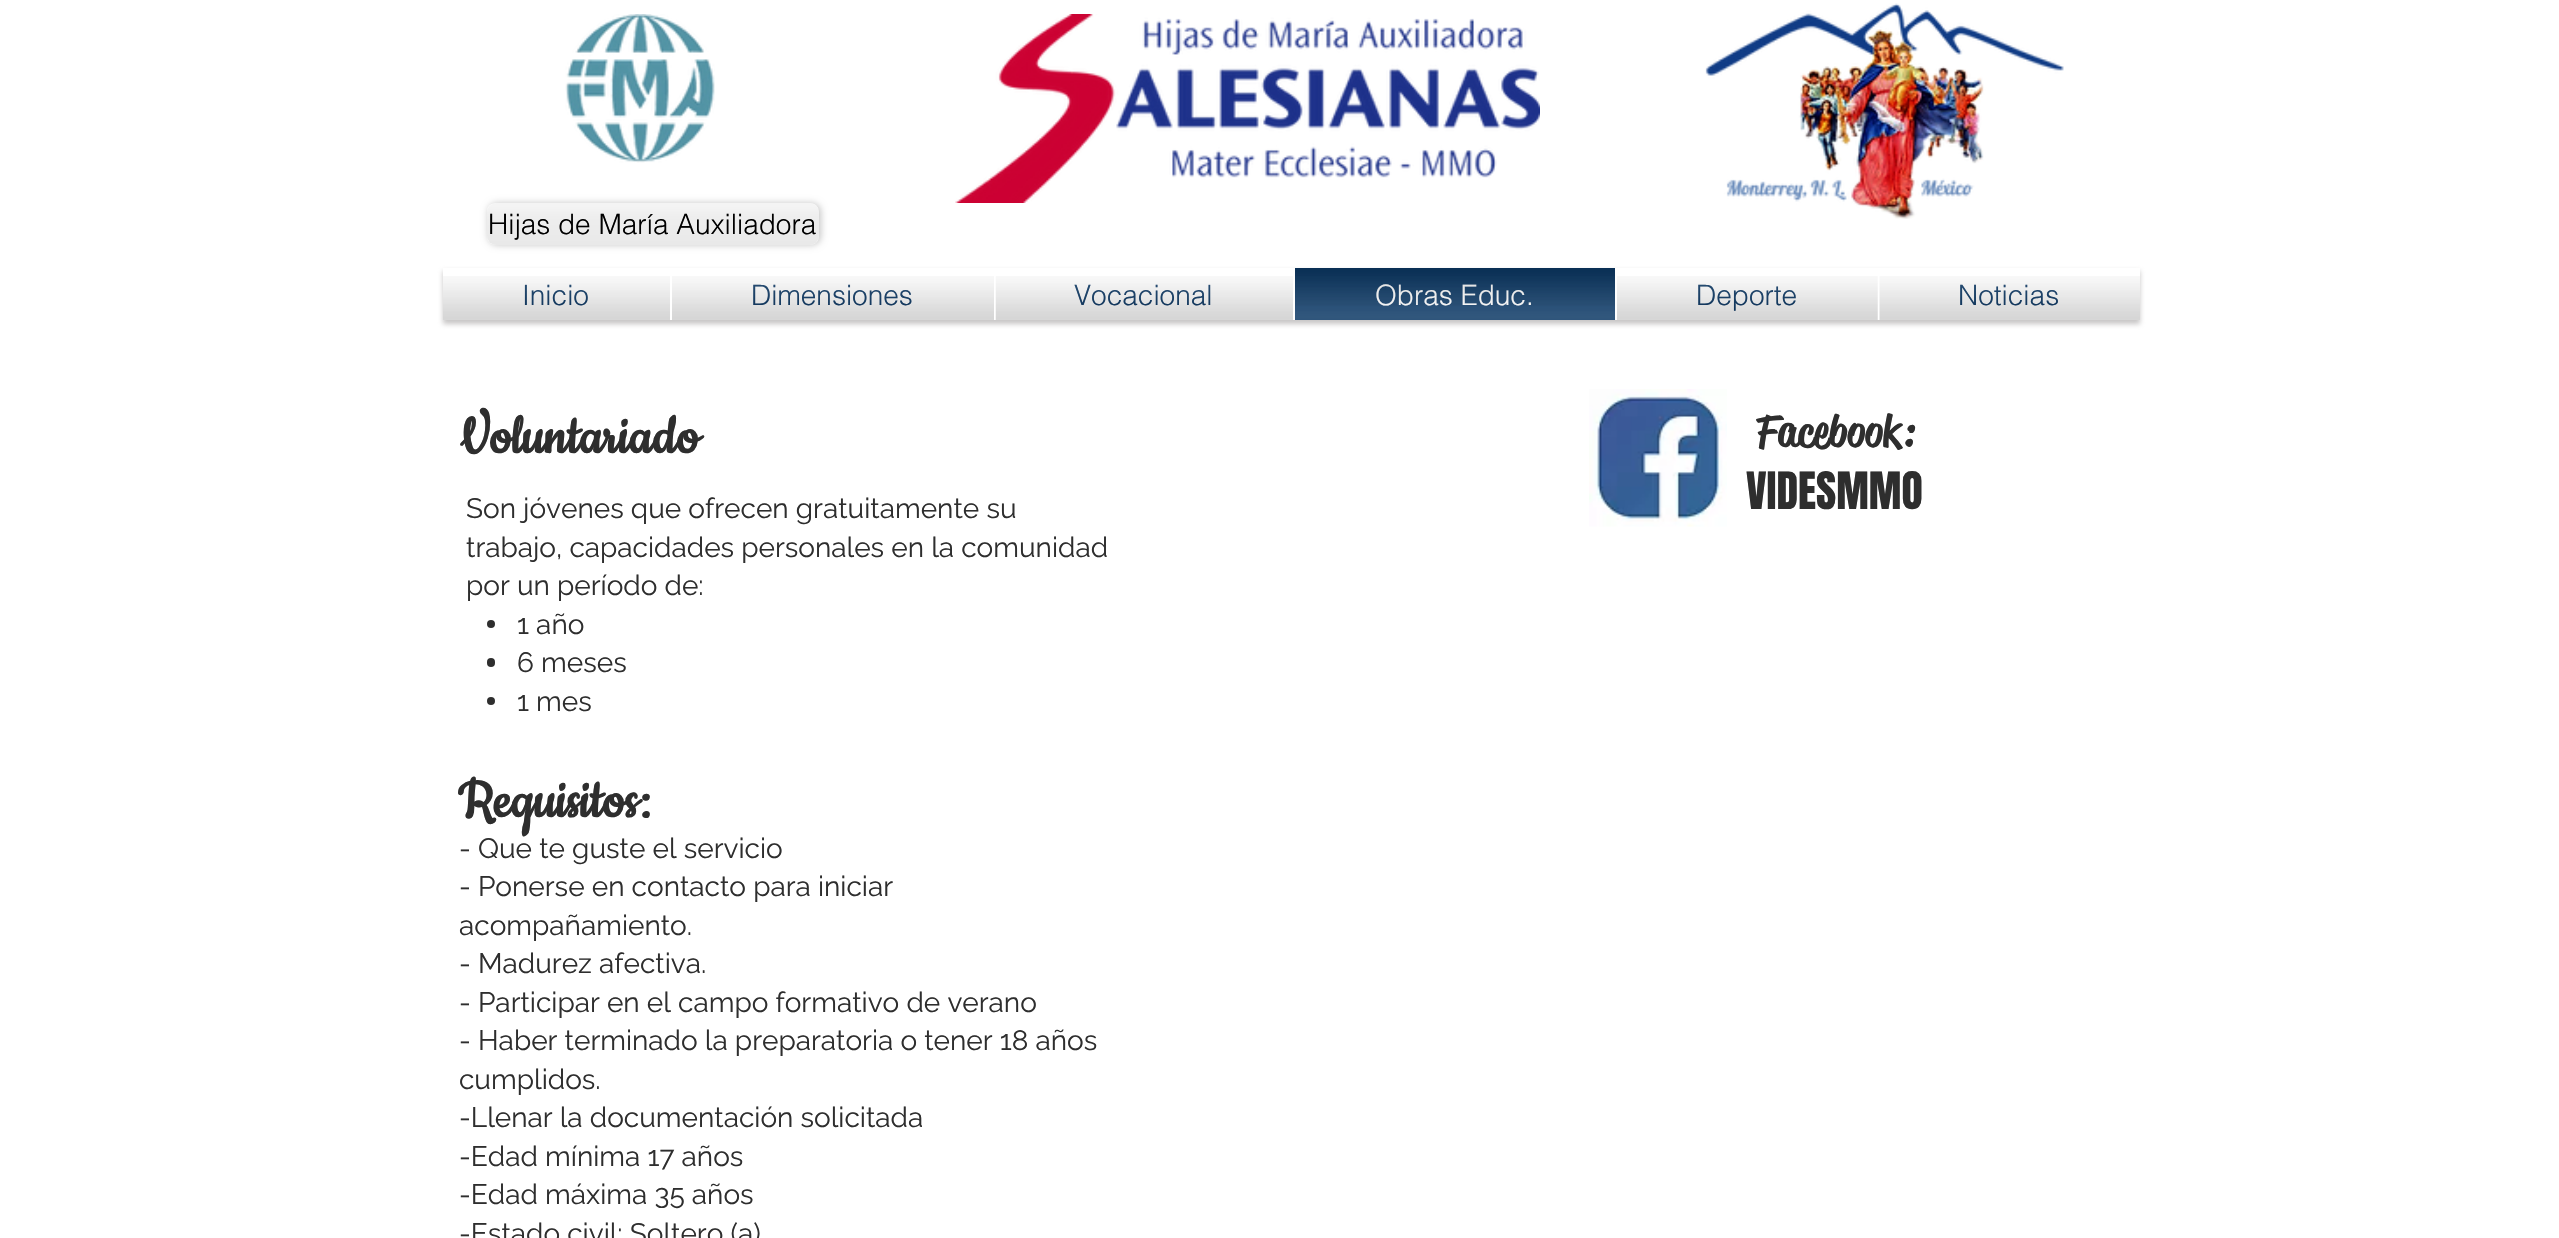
void draw(SkCanvas* canvas) {
    SkPaint paint;
    paint.setAntiAlias(true);
    auto face = [&](const char* family, int weight, float size, bool italic = false) {
        SkFontStyle style(weight, SkFontStyle::kNormal_Width,
            italic ? SkFontStyle::kItalic_Slant : SkFontStyle::kUpright_Slant);
        SkFont result(fontMgr->matchFamilyStyle(family, style), size);
        result.setSubpixel(true);
        return result;
    };
    auto write = [&](const char* s, float x, float y, const SkFont& font, SkColor color) {
        SkPaint ink(SkColor4f::FromColor(color));
        ink.setAntiAlias(true);
        canvas->drawString(s, x, y, font, ink);
    };
    auto block = [&](float x, float y, float w, float h, SkColor color) {
        SkPaint ink(SkColor4f::FromColor(color));
        ink.setAntiAlias(true);
        canvas->drawRect(SkRect::MakeXYWH(x, y, w, h), ink);
    };
    auto card = [&](float x, float y, float w, float h, float radius, SkColor color) {
        SkPaint ink(SkColor4f::FromColor(color));
        ink.setAntiAlias(true);
        canvas->drawRoundRect(SkRect::MakeXYWH(x, y, w, h), radius, radius, ink);
    };
    auto paste = [&](const char* path, float x, float y, float w, float h) {
        auto image = SkImages::DeferredFromEncodedData(SkData::MakeFromFileName(path));
        canvas->drawImageRect(image, SkRect::MakeXYWH(x, y, w, h), SkSamplingOptions());
    };
    canvas->clear(SK_ColorWHITE);
    paste("pic1.png", 565, 14, 150, 149);
    paste("pic2.png", 955, 14, 585, 189);
    paste("pic3.png", 1705, 3, 359, 216);
    canvas->save();
    canvas->clipPath(SkPathBuilder(SkPathFillType::kEvenOdd).moveTo(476, 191).lineTo(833, 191).lineTo(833, 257).lineTo(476, 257).close().moveTo(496, 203).lineTo(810, 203).cubicTo(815, 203, 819, 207, 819, 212).lineTo(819, 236).cubicTo(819, 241, 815, 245, 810, 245).lineTo(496, 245).cubicTo(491, 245, 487, 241, 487, 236).lineTo(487, 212).cubicTo(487, 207, 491, 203, 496, 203).close().detach(), true);
    paint.setColor(SkColorSetARGB(56, 0, 0, 0));
    paint.setMaskFilter(SkMaskFilter::MakeBlur(kNormal_SkBlurStyle, 3.5f));
    canvas->drawRoundRect(SkRect::MakeXYWH(488, 203, 333, 42), 9, 9, paint);
    paint.setMaskFilter(nullptr);
    canvas->restore();
    card(487, 203, 332, 42, 9, SkColorSetARGB(130, 204, 204, 204));
    paste("pic4.png", 487, 203, 332, 42);
    auto kFont1 = face("helvetica", 300, 28);
    write("Hijas de María Auxiliadora", 488, 234, kFont1, SK_ColorBLACK);
    paint.setColor(SkColorSetARGB(153, 162, 158, 158));
    paint.setMaskFilter(SkMaskFilter::MakeBlur(kNormal_SkBlurStyle, 2.5f));
    canvas->drawRect(SkRect::MakeXYWH(443, 271, 1697, 53), paint);
    paint.setMaskFilter(nullptr);
    block(443, 268, 852, 52, SK_ColorWHITE);
    write("Inicio", 522, 305, kFont1, SkColorSetRGB(0, 46, 93));
    paste("pic5.png", 525, 284, 63, 22);
    paste("pic6.png", 443, 276, 227, 44);
    write("Dimensiones", 751, 305, kFont1, SkColorSetRGB(0, 46, 93));
    paste("pic7.png", 753, 284, 159, 22);
    paste("pic8.png", 672, 276, 322, 44);
    write("Vocacional", 1074, 305, kFont1, SkColorSetRGB(0, 46, 93));
    paste("pic9.png", 1075, 284, 136, 22);
    paste("pic10.png", 995, 276, 298, 44);
    block(1295, 268, 320, 52, SkColorSetRGB(0, 46, 93));
    write("Obras Educ.", 1375, 305, kFont1, SK_ColorWHITE);
    paste("pic11.png", 1295, 268, 320, 38);
    paste("pic12.png", 1295, 268, 320, 52);
    block(1615, 268, 525, 52, SK_ColorWHITE);
    write("Deporte", 1696, 305, kFont1, SkColorSetRGB(0, 46, 93));
    paste("pic13.png", 1698, 284, 98, 27);
    paste("pic14.png", 1617, 276, 261, 44);
    write("Noticias", 1958, 305, kFont1, SkColorSetRGB(0, 46, 93));
    paste("pic15.png", 1960, 284, 99, 22);
    paste("pic16.png", 1879, 276, 261, 44);
    auto kFont2 = face("Cookie", 700, 61);
    write("Voluntariado", 459, 453, kFont2, SkColorSetRGB(46, 46, 46));
    paste("pic17.png", 1589, 389, 138, 138);
    auto kFont3 = face("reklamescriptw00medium", 500, 43.75f);
    write("Facebook:", 1756, 446, kFont3, SkColorSetRGB(46, 46, 46));
    auto kFont4 = face("Anton", 400, 43.75f);
    write("VIDESMMO", 1746, 509, kFont4, SkColorSetRGB(46, 46, 46));
    auto kFont5 = face("Raleway", 400, 28);
    write("Son jóvenes que ofrecen gratuitamente su", 466, 518, kFont5, SkColorSetRGB(46, 46, 46));
    write("trabajo, capacidades personales en la comunidad", 466, 557, kFont5, SkColorSetRGB(46, 46, 46));
    write("por un período de:", 466, 595, kFont5, SkColorSetRGB(46, 46, 46));
    paint.setColor(SkColorSetRGB(46, 46, 46));
    canvas->drawCircle(491, 624, 4, paint);
    write("1 año", 517, 634, kFont5, SkColorSetRGB(46, 46, 46));
    card(487, 658, 8, 9, 4, SkColorSetRGB(46, 46, 46));
    write("6 meses", 517, 672, kFont5, SkColorSetRGB(46, 46, 46));
    canvas->drawCircle(491, 701, 4, paint);
    write("1 mes", 517, 711, kFont5, SkColorSetRGB(46, 46, 46));
    write("Requisitos:", 458, 817, kFont2, SkColorSetRGB(46, 46, 46));
    write("- Que te guste el servicio", 459, 858, kFont5, SkColorSetRGB(46, 46, 46));
    write("- Ponerse en contacto para iniciar", 459, 896, kFont5, SkColorSetRGB(46, 46, 46));
    write("acompañamiento.", 459, 935, kFont5, SkColorSetRGB(46, 46, 46));
    write("- Madurez afectiva.", 459, 973, kFont5, SkColorSetRGB(46, 46, 46));
    write("- Participar en el campo formativo de verano", 459, 1012, kFont5, SkColorSetRGB(46, 46, 46));
    write("- Haber terminado la preparatoria o tener 18 años", 459, 1050, kFont5, SkColorSetRGB(46, 46, 46));
    write("cumplidos.", 459, 1089, kFont5, SkColorSetRGB(46, 46, 46));
    write("-Llenar la documentación solicitada", 459, 1127, kFont5, SkColorSetRGB(46, 46, 46));
    write("-Edad mínima 17 años", 459, 1166, kFont5, SkColorSetRGB(46, 46, 46));
    write("-Edad máxima 35 años", 459, 1204, kFont5, SkColorSetRGB(46, 46, 46));
    write("-Estado civil: Soltero (a)", 459, 1243, kFont5, SkColorSetRGB(46, 46, 46));
}
